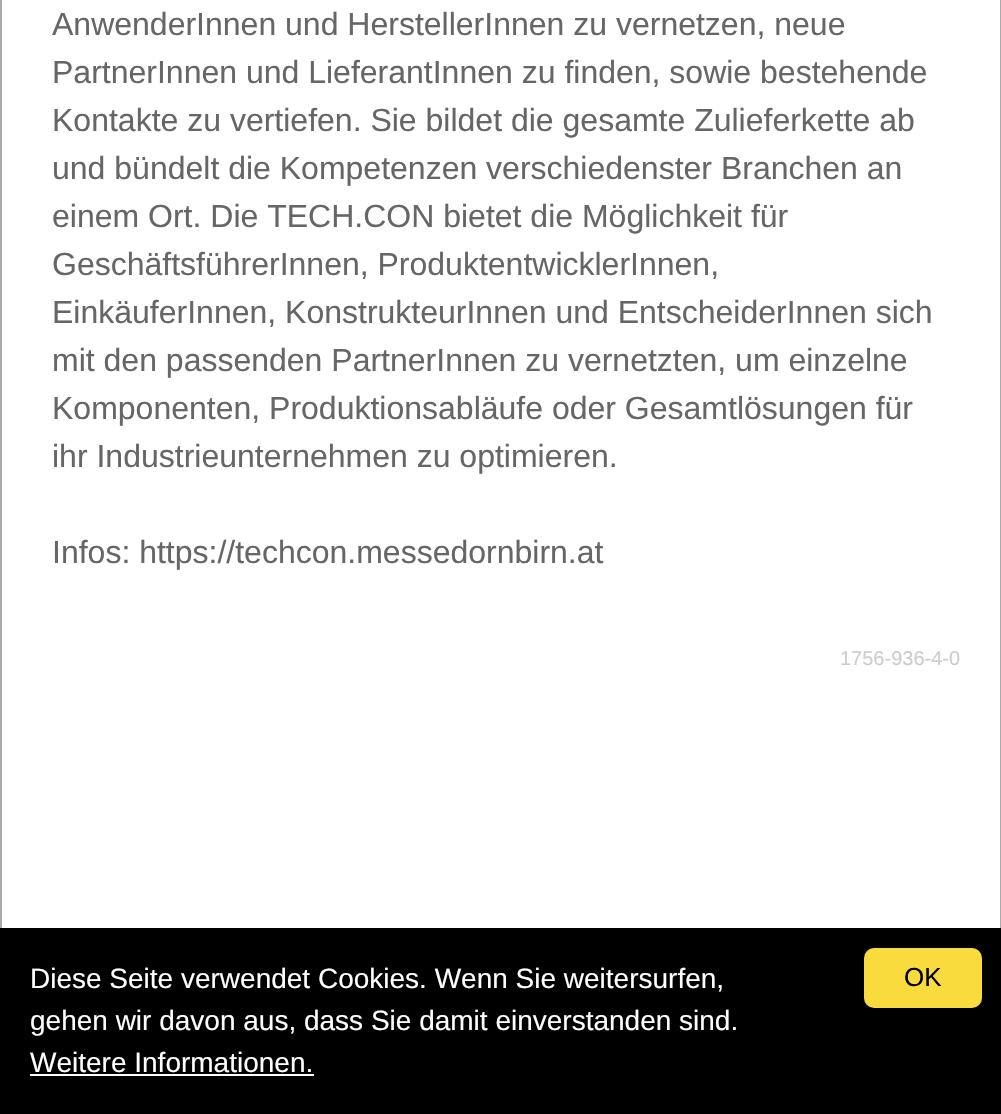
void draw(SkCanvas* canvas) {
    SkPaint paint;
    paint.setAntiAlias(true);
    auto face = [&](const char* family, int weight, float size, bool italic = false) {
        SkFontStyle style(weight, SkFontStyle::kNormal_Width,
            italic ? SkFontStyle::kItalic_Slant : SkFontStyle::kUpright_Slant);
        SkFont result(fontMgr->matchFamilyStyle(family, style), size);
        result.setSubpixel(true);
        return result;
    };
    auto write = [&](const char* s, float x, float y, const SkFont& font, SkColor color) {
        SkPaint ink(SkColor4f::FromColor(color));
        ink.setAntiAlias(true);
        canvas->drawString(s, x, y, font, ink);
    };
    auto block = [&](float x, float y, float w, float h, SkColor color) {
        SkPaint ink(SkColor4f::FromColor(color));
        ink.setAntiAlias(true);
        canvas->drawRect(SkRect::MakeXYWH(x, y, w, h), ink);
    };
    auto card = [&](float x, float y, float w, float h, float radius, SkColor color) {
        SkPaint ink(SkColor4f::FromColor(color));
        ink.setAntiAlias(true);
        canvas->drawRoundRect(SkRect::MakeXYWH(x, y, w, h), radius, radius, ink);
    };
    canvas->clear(SK_ColorWHITE);
    block(1000, 0, 1, 928, SkColorSetRGB(170, 170, 170));
    block(0, 0, 2, 928, SkColorSetRGB(170, 170, 170));
    auto kFont1 = face("Liberation Sans", 400, 32);
    write("AnwenderInnen und HerstellerInnen zu vernetzen, neue", 52, 35, kFont1, SkColorSetRGB(102, 102, 102));
    write("PartnerInnen und LieferantInnen zu finden, sowie bestehende", 52, 83, kFont1, SkColorSetRGB(102, 102, 102));
    write("Kontakte zu vertiefen. Sie bildet die gesamte Zulieferkette ab", 52, 131, kFont1, SkColorSetRGB(102, 102, 102));
    write("und bündelt die Kompetenzen verschiedenster Branchen an", 52, 179, kFont1, SkColorSetRGB(102, 102, 102));
    write("einem Ort. Die TECH.CON bietet die Möglichkeit für", 52, 227, kFont1, SkColorSetRGB(102, 102, 102));
    write("GeschäftsführerInnen, ProduktentwicklerInnen,", 52, 275, kFont1, SkColorSetRGB(102, 102, 102));
    write("EinkäuferInnen, KonstrukteurInnen und EntscheiderInnen sich", 52, 323, kFont1, SkColorSetRGB(102, 102, 102));
    write("mit den passenden PartnerInnen zu vernetzten, um einzelne", 52, 371, kFont1, SkColorSetRGB(102, 102, 102));
    write("Komponenten, Produktionsabläufe oder Gesamtlösungen für", 52, 419, kFont1, SkColorSetRGB(102, 102, 102));
    write("ihr Industrieunternehmen zu optimieren.", 52, 467, kFont1, SkColorSetRGB(102, 102, 102));
    write("Infos: https://techcon.messedornbirn.at", 52, 563, kFont1, SkColorSetRGB(102, 102, 102));
    auto kFont2 = face("Liberation Sans", 400, 20);
    write("1756-936-4-0", 840, 665, kFont2, SkColorSetRGB(204, 204, 204));
    block(0, 928, 1001, 186, SK_ColorBLACK);
    auto kFont3 = face("Liberation Sans", 400, 28);
    write("Diese Seite verwendet Cookies. Wenn Sie weitersurfen,", 30, 988, kFont3, SK_ColorWHITE);
    write("gehen wir davon aus, dass Sie damit einverstanden sind.", 30, 1030, kFont3, SK_ColorWHITE);
    write("Weitere Informationen.", 30, 1072, kFont3, SK_ColorWHITE);
    block(30, 1074, 284, 2, SK_ColorWHITE);
    card(864, 948, 118, 60, 10, SkColorSetRGB(249, 219, 62));
    auto kFont4 = face("Liberation Sans", 400, 26);
    write("OK", 904, 986, kFont4, SK_ColorBLACK);
}
